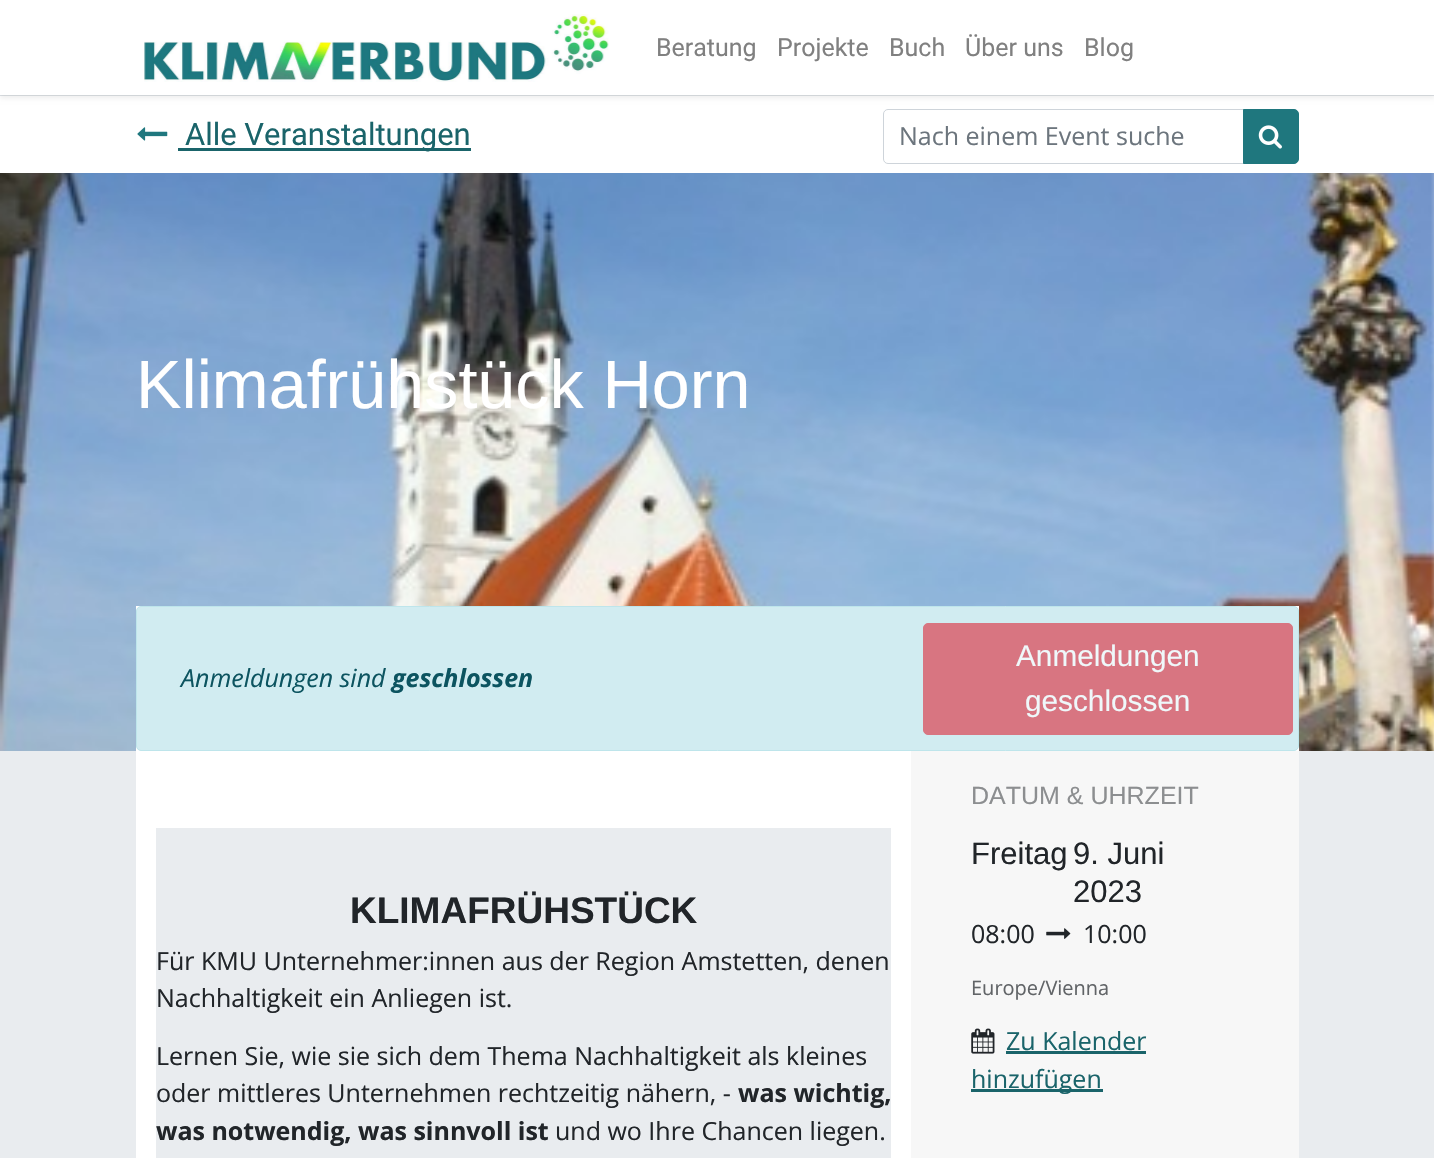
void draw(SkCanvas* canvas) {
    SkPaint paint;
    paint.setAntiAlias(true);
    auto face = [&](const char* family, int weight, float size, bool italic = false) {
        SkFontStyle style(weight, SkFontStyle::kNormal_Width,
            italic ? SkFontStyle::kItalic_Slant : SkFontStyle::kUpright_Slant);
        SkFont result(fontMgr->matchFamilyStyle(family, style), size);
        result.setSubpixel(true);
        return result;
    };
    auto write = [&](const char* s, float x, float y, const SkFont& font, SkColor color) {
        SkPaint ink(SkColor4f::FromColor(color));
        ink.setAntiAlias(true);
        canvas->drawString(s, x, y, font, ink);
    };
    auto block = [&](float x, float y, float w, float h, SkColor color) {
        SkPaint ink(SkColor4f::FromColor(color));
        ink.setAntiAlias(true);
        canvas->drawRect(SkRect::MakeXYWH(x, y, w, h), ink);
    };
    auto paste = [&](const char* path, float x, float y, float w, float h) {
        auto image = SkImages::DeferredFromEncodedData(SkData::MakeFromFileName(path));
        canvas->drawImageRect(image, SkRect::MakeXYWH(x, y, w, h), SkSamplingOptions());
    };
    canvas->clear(SK_ColorWHITE);
    paint.setColor(SkColorSetARGB(18, 0, 0, 0));
    paint.setMaskFilter(SkMaskFilter::MakeBlur(kNormal_SkBlurStyle, 2.5f));
    canvas->drawRect(SkRect::MakeXYWH(0, 98, 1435, 78), paint);
    paint.setMaskFilter(nullptr);
    block(0, 96, 1434, 78, SK_ColorWHITE);
    block(0, 95, 1434, 1, SkColorSetRGB(222, 226, 230));
    paint.setMaskFilter(SkMaskFilter::MakeBlur(kNormal_SkBlurStyle, 2.5f));
    canvas->drawRect(SkRect::MakeXYWH(0, 3, 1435, 95), paint);
    paint.setMaskFilter(nullptr);
    block(0, 0, 1434, 95, SK_ColorWHITE);
    paste("pic1.png", 144, 14, 465, 68);
    auto kFont1 = face("Roboto", 400, 25);
    write("Beratung", 656, 56, kFont1, SkColorSetRGB(128, 128, 128));
    write("Projekte", 777, 56, kFont1, SkColorSetRGB(128, 128, 128));
    write("Buch", 889, 56, kFont1, SkColorSetRGB(128, 128, 128));
    write("Über uns", 965, 56, kFont1, SkColorSetRGB(128, 128, 128));
    write("Blog", 1084, 56, kFont1, SkColorSetRGB(128, 128, 128));
    paste("pic2.png", 137, 127, 31, 14);
    block(178, 148, 293, 3, SkColorSetRGB(26, 100, 106));
    auto kFont2 = face("Roboto", 400, 31);
    write("Alle Veranstaltungen", 185, 145, kFont2, SkColorSetRGB(26, 100, 106));
    paint.setStyle(SkPaint::kStroke_Style);
    paint.setStrokeWidth(1);
    paint.setColor(SkColorSetRGB(206, 212, 218));
    canvas->drawPath(SkPathBuilder().moveTo(888, 109.5f).lineTo(1243.5f, 109.5f).lineTo(1243.5f, 163.5f).lineTo(888, 163.5f).cubicTo(885.5f, 163.5f, 883.5f, 161.5f, 883.5f, 159).lineTo(883.5f, 114).cubicTo(883.5f, 111.5f, 885.5f, 109.5f, 888, 109.5f).close().detach(), paint);
    auto kFont3 = face("Open Sans", 400, 25);
    write("Nach einem Event suche", 899, 145, kFont3, SkColorSetRGB(108, 117, 125));
    paint.setStyle(SkPaint::kFill_Style);
    paint.setColor(SkColorSetRGB(31, 119, 126));
    canvas->drawPath(SkPathBuilder().moveTo(1243.5f, 109.5f).lineTo(1294, 109.5f).cubicTo(1296.5f, 109.5f, 1298.5f, 111.5f, 1298.5f, 114).lineTo(1298.5f, 159).cubicTo(1298.5f, 161.5f, 1296.5f, 163.5f, 1294, 163.5f).lineTo(1243.5f, 163.5f).close().detach(), paint);
    paint.setStyle(SkPaint::kStroke_Style);
    canvas->drawPath(SkPathBuilder().moveTo(1243.5f, 109.5f).lineTo(1294, 109.5f).cubicTo(1296.5f, 109.5f, 1298.5f, 111.5f, 1298.5f, 114).lineTo(1298.5f, 159).cubicTo(1298.5f, 161.5f, 1296.5f, 163.5f, 1294, 163.5f).lineTo(1243.5f, 163.5f).close().detach(), paint);
    paste("pic3.png", 1258, 125, 24, 24);
    paste("pic4.png", 0, 173, 1434, 578);
    auto kFont4 = face("Liberation Sans", 400, 68.25f);
    write("Klimafrühstück Horn", 136, 408, kFont4, SK_ColorWHITE);
    block(136, 606, 1163, 145, SK_ColorWHITE);
    paint.setStyle(SkPaint::kFill_Style);
    paint.setColor(SkColorSetRGB(209, 236, 241));
    canvas->drawRoundRect(SkRect::MakeXYWH(136.5f, 606.5f, 1162, 144), 4.5f, 4.5f, paint);
    paint.setStyle(SkPaint::kStroke_Style);
    paint.setColor(SkColorSetRGB(190, 229, 235));
    canvas->drawRoundRect(SkRect::MakeXYWH(136.5f, 606.5f, 1162, 144), 4.5f, 4.5f, paint);
    auto kFont5 = face("Open Sans", 400, 25, true);
    write("Anmeldungen sind", 181, 687, kFont5, SkColorSetRGB(12, 84, 96));
    auto kFont6 = face("Open Sans", 700, 25, true);
    write("geschlossen", 392, 687, kFont6, SkColorSetRGB(12, 84, 96));
    paint.setStyle(SkPaint::kFill_Style);
    paint.setColor(SkColorSetRGB(216, 117, 129));
    canvas->drawRoundRect(SkRect::MakeXYWH(923.5f, 623.5f, 369, 111), 4.5f, 4.5f, paint);
    paint.setStyle(SkPaint::kStroke_Style);
    canvas->drawRoundRect(SkRect::MakeXYWH(923.5f, 623.5f, 369, 111), 4.5f, 4.5f, paint);
    auto kFont7 = face("Liberation Sans", 400, 29.75f);
    write("Anmeldungen", 1016, 666, kFont7, SkColorSetRGB(239, 248, 250));
    write("geschlossen", 1025, 711, kFont7, SkColorSetRGB(239, 248, 250));
    block(0, 751, 1434, 407, SkColorSetRGB(233, 236, 239));
    block(136, 751, 775, 407, SK_ColorWHITE);
    block(156, 828, 735, 330, SkColorSetRGB(233, 236, 239));
    auto kFont8 = face("Liberation Sans", 700, 37);
    write("KLIMAFRÜHSTÜCK", 350, 923, kFont8, SkColorSetRGB(33, 37, 41));
    write("Für KMU Unternehmer:innen aus der Region Amstetten, denen", 156, 970, kFont3, SkColorSetRGB(33, 37, 41));
    write("Nachhaltigkeit ein Anliegen ist.", 156, 1007, kFont3, SkColorSetRGB(33, 37, 41));
    write("Lernen Sie, wie sie sich dem Thema Nachhaltigkeit als kleines", 156, 1065, kFont3, SkColorSetRGB(33, 37, 41));
    write("oder mittleres Unternehmen rechtzeitig nähern, -", 156, 1102, kFont3, SkColorSetRGB(33, 37, 41));
    auto kFont9 = face("Open Sans", 700, 25);
    write("was wichtig,", 738, 1102, kFont9, SkColorSetRGB(33, 37, 41));
    write("was notwendig, was sinnvoll ist", 156, 1140, kFont9, SkColorSetRGB(33, 37, 41));
    write("und wo Ihre Chancen liegen.", 555, 1140, kFont3, SkColorSetRGB(33, 37, 41));
    block(911, 751, 388, 407, SkColorSetRGB(247, 247, 247));
    auto kFont10 = face("Liberation Sans", 400, 25);
    write("DATUM & UHRZEIT", 971, 804, kFont10, SkColorSetRGB(140, 142, 144));
    auto kFont11 = face("Liberation Sans", 400, 31);
    write("Freitag", 971, 864, kFont11, SkColorSetRGB(33, 37, 41));
    write("9. Juni", 1073, 864, kFont11, SkColorSetRGB(33, 37, 41));
    write("2023", 1073, 902, kFont11, SkColorSetRGB(33, 37, 41));
    write("08:00", 971, 943, kFont3, SkColorSetRGB(33, 37, 41));
    paste("pic5.png", 1046, 928, 25, 11);
    write("10:00", 1083, 943, kFont3, SkColorSetRGB(33, 37, 41));
    auto kFont12 = face("Open Sans", 400, 20);
    write("Europe/Vienna", 971, 995, kFont12, SkColorSetRGB(97, 100, 103));
    paste("pic6.png", 971, 1028, 24, 26);
    write("Zu Kalender", 1006, 1050, kFont3, SkColorSetRGB(26, 100, 106));
    block(1006, 1051, 140, 3, SkColorSetRGB(26, 100, 106));
    block(971, 1089, 132, 3, SkColorSetRGB(26, 100, 106));
    write("hinzufügen", 971, 1088, kFont3, SkColorSetRGB(26, 100, 106));
}
